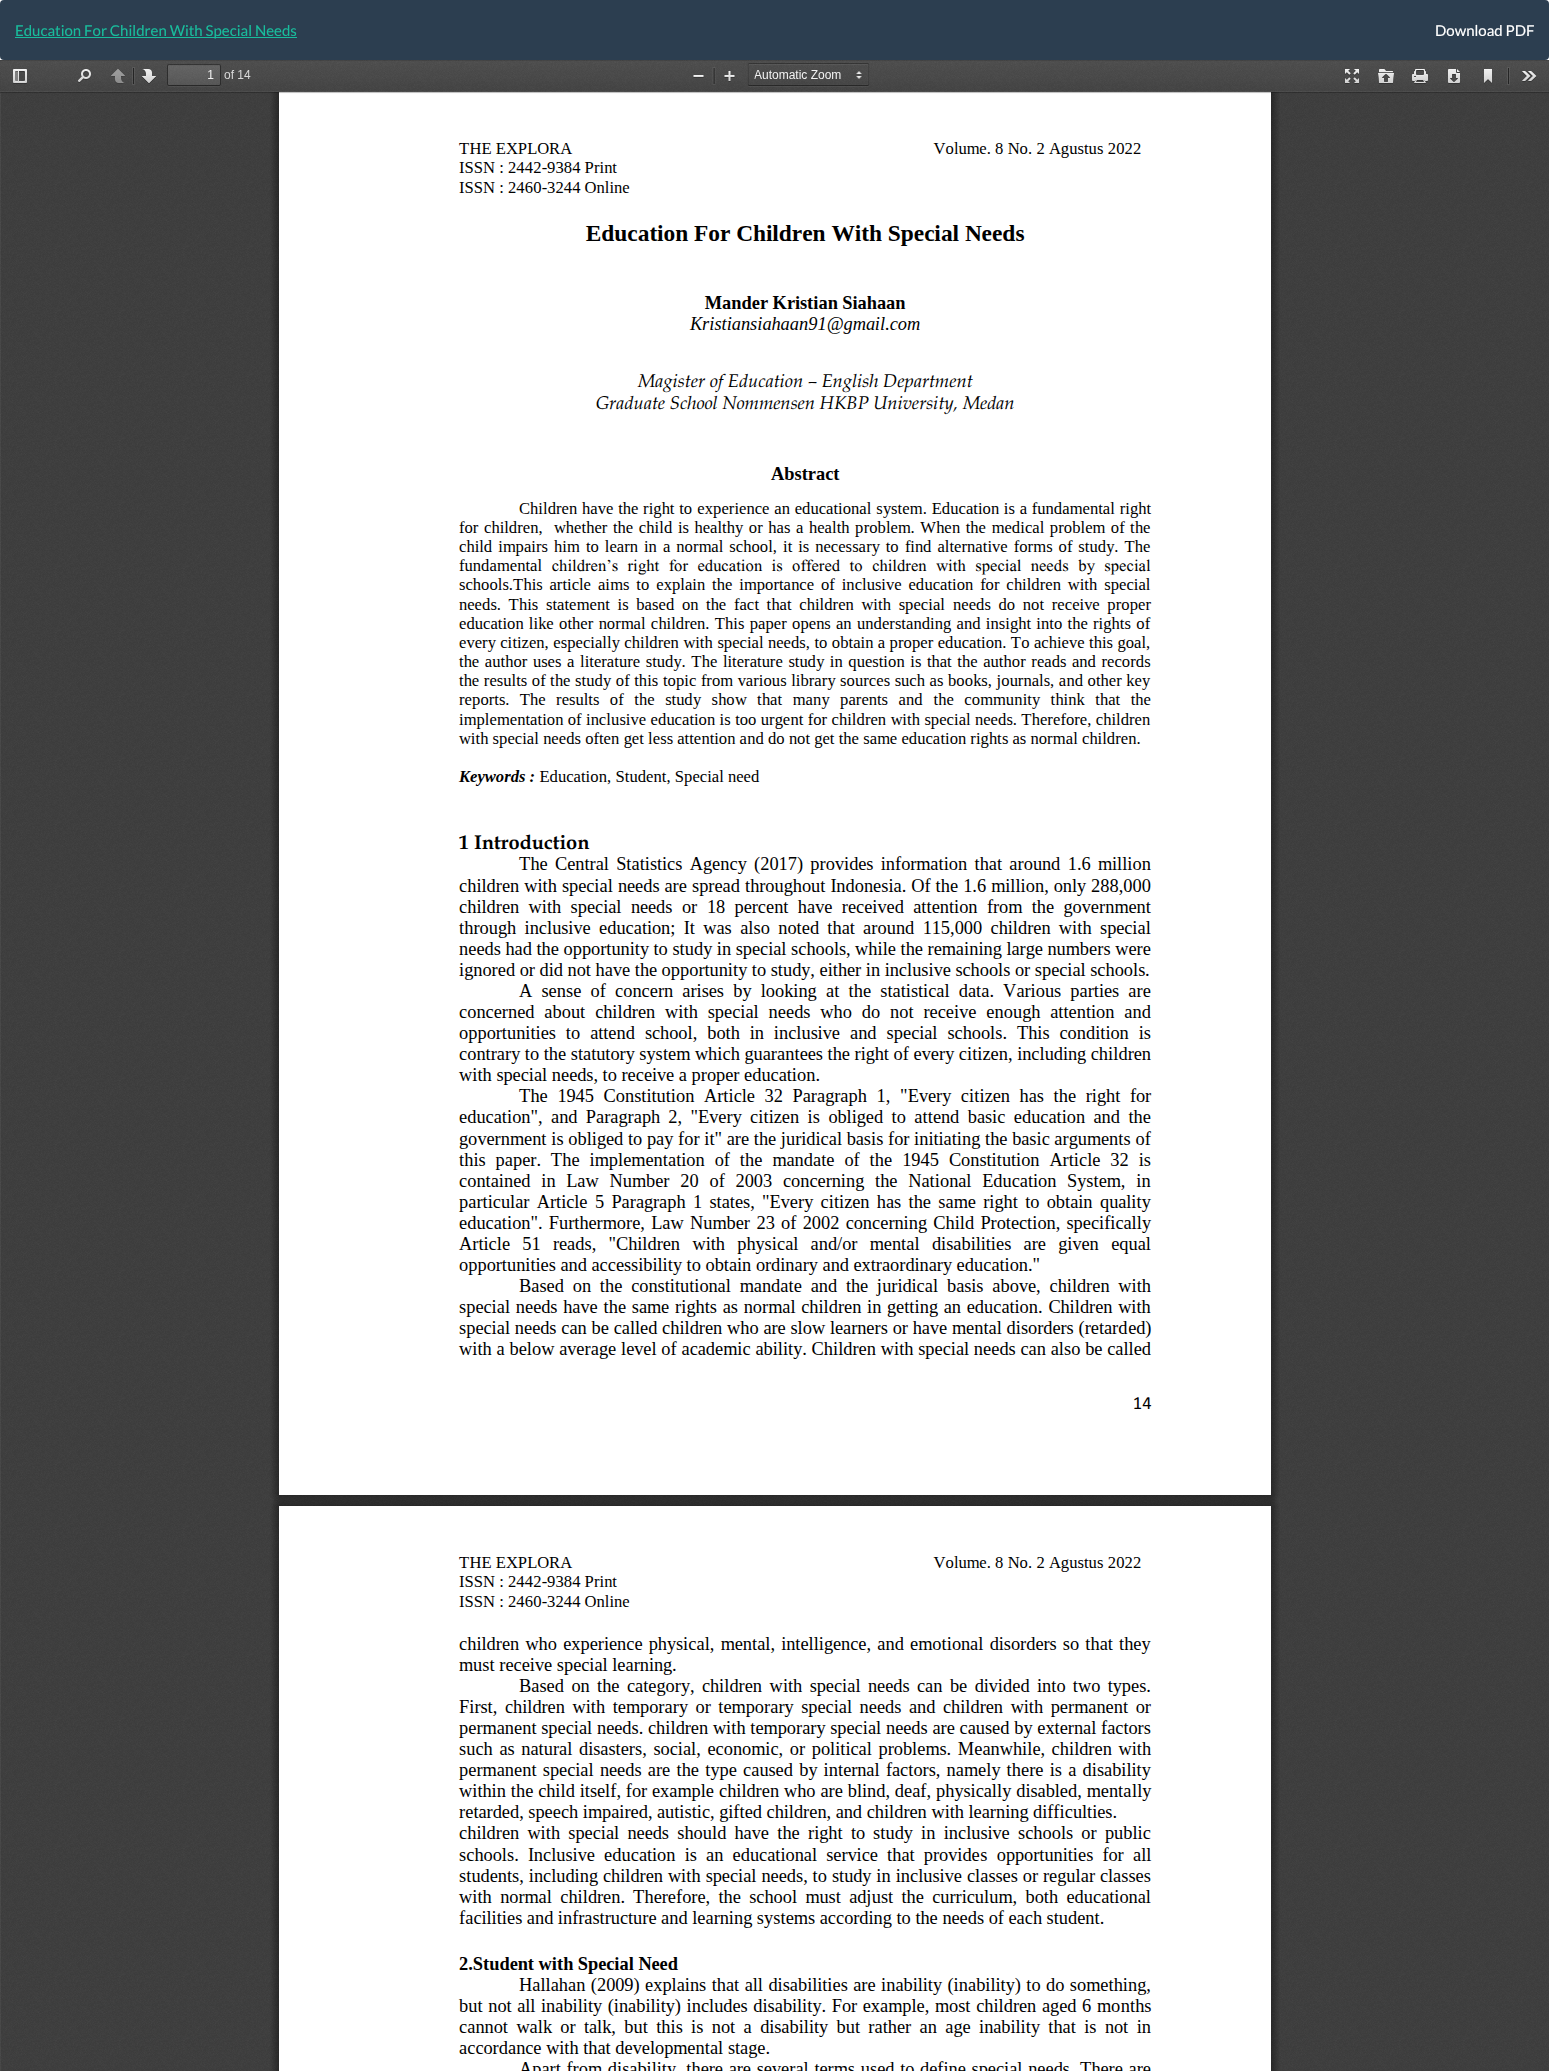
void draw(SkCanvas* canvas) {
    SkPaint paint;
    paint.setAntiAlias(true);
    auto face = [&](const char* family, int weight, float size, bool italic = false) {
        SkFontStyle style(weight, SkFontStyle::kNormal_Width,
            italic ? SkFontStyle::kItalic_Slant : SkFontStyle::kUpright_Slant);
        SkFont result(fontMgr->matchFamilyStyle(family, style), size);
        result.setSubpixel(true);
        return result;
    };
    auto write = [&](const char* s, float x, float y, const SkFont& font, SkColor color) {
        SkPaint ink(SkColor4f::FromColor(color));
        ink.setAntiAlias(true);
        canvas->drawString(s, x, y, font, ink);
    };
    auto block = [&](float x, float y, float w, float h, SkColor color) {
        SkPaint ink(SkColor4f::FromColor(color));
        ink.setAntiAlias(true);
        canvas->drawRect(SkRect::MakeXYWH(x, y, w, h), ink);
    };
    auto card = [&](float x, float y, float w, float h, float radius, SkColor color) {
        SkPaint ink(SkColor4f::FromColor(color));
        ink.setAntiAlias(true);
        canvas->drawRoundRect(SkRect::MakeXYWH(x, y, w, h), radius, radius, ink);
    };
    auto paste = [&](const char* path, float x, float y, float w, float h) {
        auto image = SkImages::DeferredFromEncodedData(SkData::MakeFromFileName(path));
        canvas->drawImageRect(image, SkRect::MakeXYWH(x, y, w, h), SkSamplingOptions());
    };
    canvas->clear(SK_ColorWHITE);
    card(0, 0, 1549, 60, 4, SkColorSetRGB(44, 62, 80));
    block(15, 37, 282, 1, SkColorSetRGB(24, 188, 156));
    auto kFont1 = face("Lato", 400, 15);
    write("Education For Children With Special Needs", 15, 36, kFont1, SkColorSetRGB(24, 188, 156));
    write("Download PDF", 1435, 36, kFont1, SK_ColorWHITE);
    paste("pic1.png", 0, 60, 1549, 2011);
}
